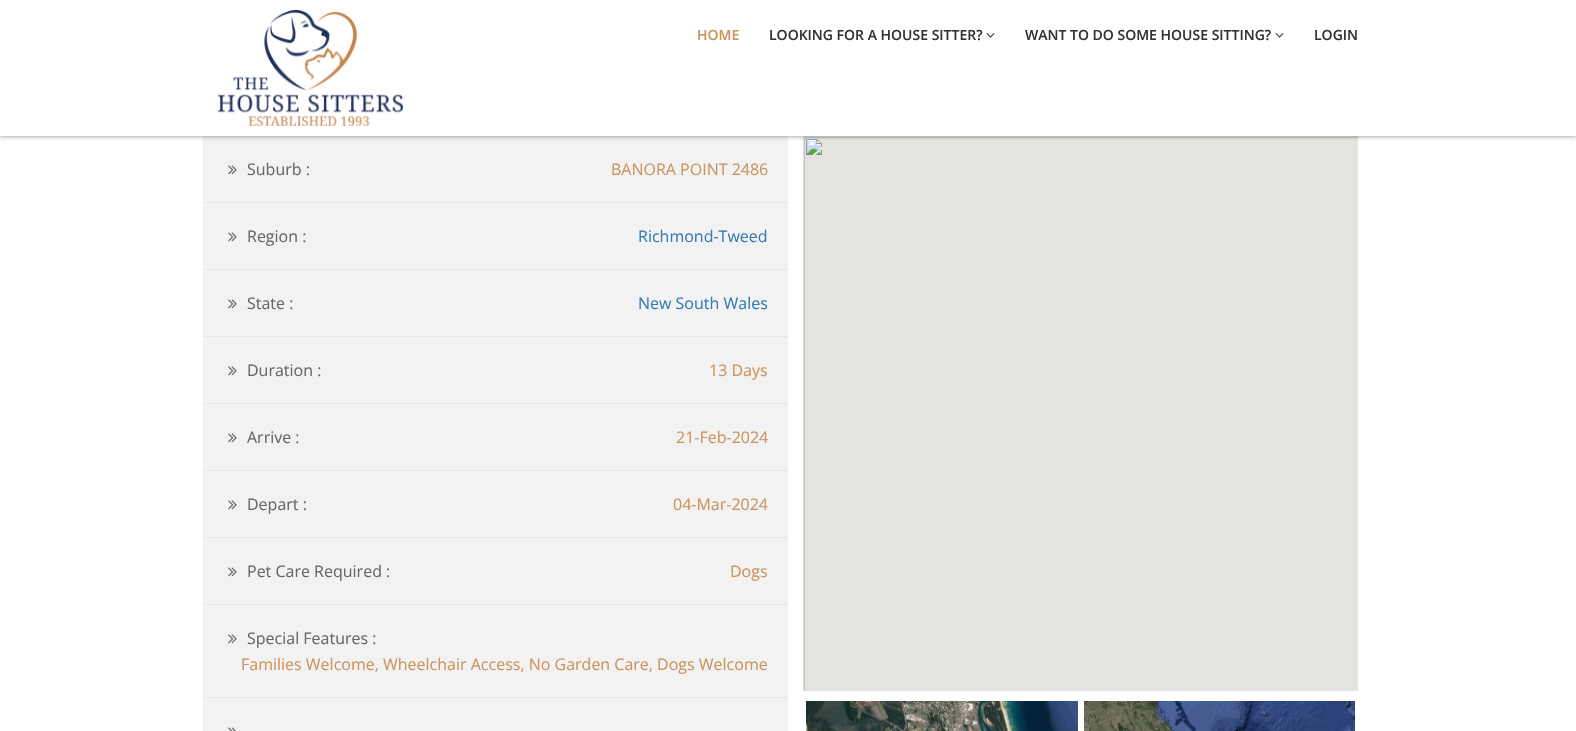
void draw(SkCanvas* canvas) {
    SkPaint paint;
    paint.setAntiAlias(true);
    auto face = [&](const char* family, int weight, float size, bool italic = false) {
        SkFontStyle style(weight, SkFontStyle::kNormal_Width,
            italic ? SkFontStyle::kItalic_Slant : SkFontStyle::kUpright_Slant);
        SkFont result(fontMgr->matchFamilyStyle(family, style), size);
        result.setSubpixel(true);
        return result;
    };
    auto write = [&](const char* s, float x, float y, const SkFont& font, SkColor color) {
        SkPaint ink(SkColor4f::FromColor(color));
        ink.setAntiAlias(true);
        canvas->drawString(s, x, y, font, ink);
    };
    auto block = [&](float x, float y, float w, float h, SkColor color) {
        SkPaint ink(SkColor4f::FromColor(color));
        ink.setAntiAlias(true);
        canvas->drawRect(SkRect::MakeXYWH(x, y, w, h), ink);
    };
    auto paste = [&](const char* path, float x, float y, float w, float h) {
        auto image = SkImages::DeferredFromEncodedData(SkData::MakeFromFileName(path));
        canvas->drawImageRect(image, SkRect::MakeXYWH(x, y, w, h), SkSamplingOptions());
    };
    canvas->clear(SK_ColorWHITE);
    block(203, 136, 585, 66, SkColorSetRGB(242, 242, 242));
    paste("pic5.png", 803, 136, 555, 555);
    canvas->save();
    canvas->clipRect(SkRect::MakeXYWH(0, 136, 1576, 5));
    paint.setColor(SkColorSetRGB(136, 136, 136));
    paint.setMaskFilter(SkMaskFilter::MakeBlur(kNormal_SkBlurStyle, 2.5f));
    canvas->drawRect(SkRect::MakeXYWH(0, 0, 1576, 136), paint);
    paint.setMaskFilter(nullptr);
    canvas->restore();
    paste("pic1.png", 218, 10, 185, 116);
    auto kFont1 = face("Open Sans", 600, 14);
    write("HOME", 697, 40, kFont1, SkColorSetRGB(204, 147, 92));
    write("LOOKING FOR A HOUSE SITTER?", 769, 40, kFont1, SkColorSetRGB(51, 51, 51));
    paste("pic2.png", 986, 33, 9, 5);
    write("WANT TO DO SOME HOUSE SITTING?", 1025, 40, kFont1, SkColorSetRGB(51, 51, 51));
    paste("pic2.png", 1275, 33, 9, 5);
    write("LOGIN", 1314, 40, kFont1, SkColorSetRGB(51, 51, 51));
    block(203, 202, 585, 1, SkColorSetRGB(230, 230, 230));
    paste("pic3.png", 228, 165, 9, 10);
    auto kFont2 = face("Open Sans", 400, 16);
    write("Suburb :", 247, 175, kFont2, SkColorSetRGB(103, 103, 103));
    write("BANORA POINT 2486", 611, 175, kFont2, SkColorSetRGB(204, 147, 92));
    block(203, 203, 585, 66, SkColorSetRGB(242, 242, 242));
    block(203, 269, 585, 1, SkColorSetRGB(230, 230, 230));
    paste("pic3.png", 228, 232, 9, 10);
    write("Region :", 247, 242, kFont2, SkColorSetRGB(103, 103, 103));
    write("Richmond-Tweed", 638, 242, kFont2, SkColorSetRGB(51, 122, 183));
    block(203, 270, 585, 66, SkColorSetRGB(242, 242, 242));
    block(203, 336, 585, 1, SkColorSetRGB(230, 230, 230));
    paste("pic3.png", 228, 299, 9, 10);
    write("State :", 247, 309, kFont2, SkColorSetRGB(103, 103, 103));
    write("New South Wales", 638, 309, kFont2, SkColorSetRGB(51, 122, 183));
    block(203, 337, 585, 66, SkColorSetRGB(242, 242, 242));
    block(203, 403, 585, 1, SkColorSetRGB(230, 230, 230));
    paste("pic3.png", 228, 366, 9, 10);
    write("Duration :", 247, 376, kFont2, SkColorSetRGB(103, 103, 103));
    write("13 Days", 709, 376, kFont2, SkColorSetRGB(204, 147, 92));
    block(203, 404, 585, 66, SkColorSetRGB(242, 242, 242));
    block(203, 470, 585, 1, SkColorSetRGB(230, 230, 230));
    paste("pic3.png", 228, 433, 9, 10);
    write("Arrive :", 247, 443, kFont2, SkColorSetRGB(103, 103, 103));
    write("21-Feb-2024", 676, 443, kFont2, SkColorSetRGB(204, 147, 92));
    block(203, 471, 585, 66, SkColorSetRGB(242, 242, 242));
    block(203, 537, 585, 1, SkColorSetRGB(230, 230, 230));
    paste("pic3.png", 228, 500, 9, 10);
    write("Depart :", 247, 510, kFont2, SkColorSetRGB(103, 103, 103));
    write("04-Mar-2024", 673, 510, kFont2, SkColorSetRGB(204, 147, 92));
    block(203, 538, 585, 66, SkColorSetRGB(242, 242, 242));
    block(203, 604, 585, 1, SkColorSetRGB(230, 230, 230));
    paste("pic3.png", 228, 567, 9, 10);
    write("Pet Care Required :", 247, 577, kFont2, SkColorSetRGB(103, 103, 103));
    write("Dogs", 730, 577, kFont2, SkColorSetRGB(204, 147, 92));
    block(203, 605, 585, 92, SkColorSetRGB(242, 242, 242));
    block(203, 697, 585, 1, SkColorSetRGB(230, 230, 230));
    paste("pic3.png", 228, 634, 9, 10);
    write("Special Features :", 247, 644, kFont2, SkColorSetRGB(103, 103, 103));
    write("Families Welcome, Wheelchair Access, No Garden Care, Dogs Welcome", 241, 670, kFont2, SkColorSetRGB(204, 147, 92));
    block(203, 698, 585, 33, SkColorSetRGB(242, 242, 242));
    paste("pic4.png", 228, 727, 8, 4);
    paste("pic6.png", 806, 701, 272, 30);
    paste("pic7.png", 1084, 701, 271, 30);
}
